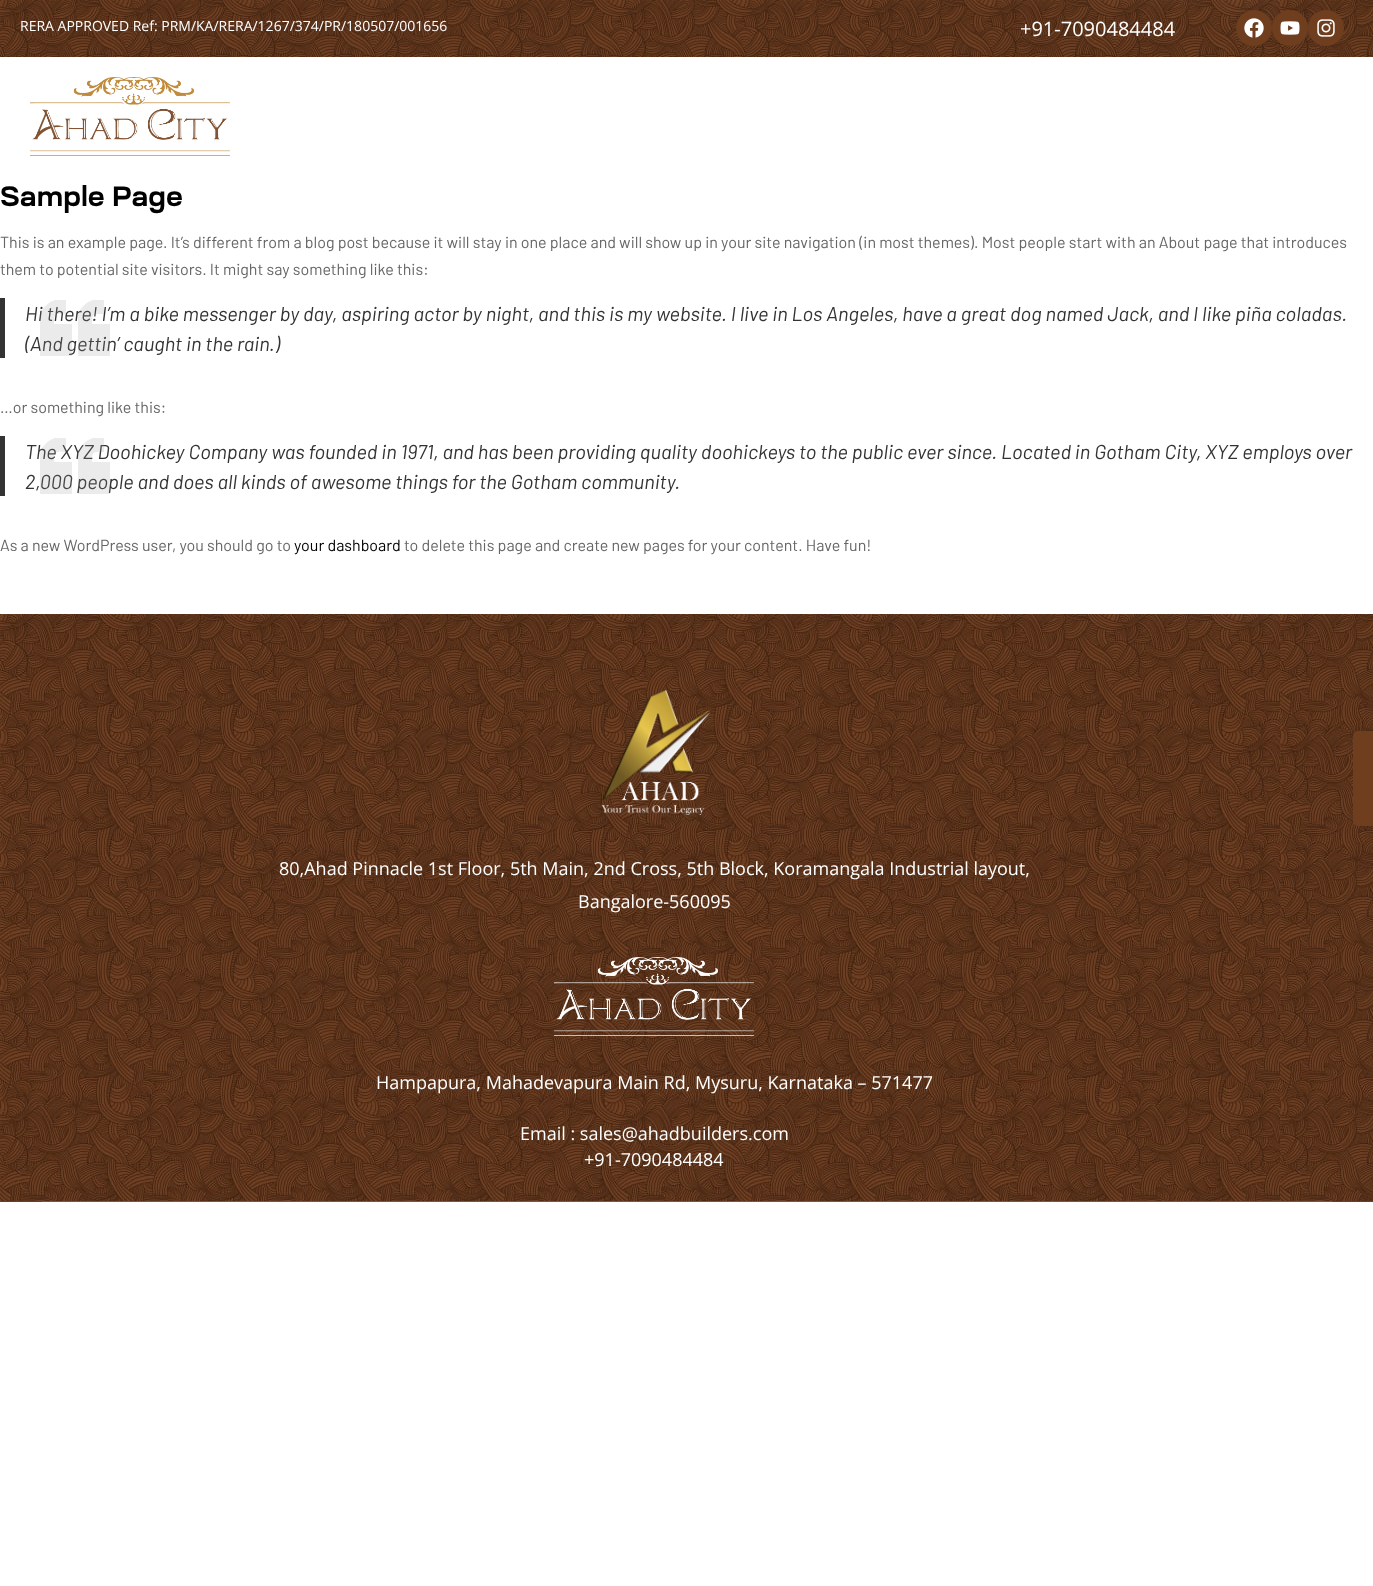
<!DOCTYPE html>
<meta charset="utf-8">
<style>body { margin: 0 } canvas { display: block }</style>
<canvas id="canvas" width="1373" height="1586"></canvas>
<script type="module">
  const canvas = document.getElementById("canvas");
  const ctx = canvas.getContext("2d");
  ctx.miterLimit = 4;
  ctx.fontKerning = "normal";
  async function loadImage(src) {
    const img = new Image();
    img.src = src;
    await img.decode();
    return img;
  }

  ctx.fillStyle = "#ffffff";
  ctx.fillRect(0, 0, 1373, 1586);
  ctx.drawImage(await loadImage("img1.png"), 0, 0, 1373, 57);
  ctx.font = "14px Open Sans";
  ctx.fillText("RERA APPROVED Ref: PRM/KA/RERA/1267/374/PR/180507/001656", 20, 31);
  ctx.font = "20px Open Sans";
  ctx.fillText("+91-7090484484", 1020, 36);
  ctx.fillStyle = "#6e3e1f";
  ctx.beginPath();
  ctx.arc(1254, 28, 18, 0, Math.PI * 2);
  ctx.fill();
  ctx.drawImage(await loadImage("img2.png"), 1244, 18, 20, 20);
  ctx.beginPath();
  ctx.arc(1290, 28, 18, 0, Math.PI * 2);
  ctx.fill();
  ctx.drawImage(await loadImage("img3.png"), 1280, 21, 20, 14);
  ctx.beginPath();
  ctx.arc(1326, 28, 18, 0, Math.PI * 2);
  ctx.fill();
  ctx.drawImage(await loadImage("img4.png"), 1317, 19, 18, 18);
  ctx.drawImage(await loadImage("img5.png"), 30, 77, 200, 79);
  ctx.font = "bold 28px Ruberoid";
  ctx.fillStyle = "#000000";
  ctx.fillText("Sample Page", 0, 206);
  ctx.font = "16px Barlow";
  ctx.fillStyle = "#666666";
  ctx.fillText("This is an example page. It’s different from a blog post because it will stay in one place and will show up in your site navigation (in most themes). Most people start with an About page that introduces", 0, 248);
  ctx.fillText("them to potential site visitors. It might say something like this:", 0, 275);
  ctx.fillStyle = "#333333";
  ctx.fillRect(0, 298, 5, 60);
  ctx.font = "italic 20px Barlow";
  ctx.fillText("Hi there! I’m a bike messenger by day, aspiring actor by night, and this is my website. I live in Los Angeles, have a great dog named Jack, and I like piña coladas.", 25, 321);
  ctx.fillText("(And gettin’ caught in the rain.)", 25, 351);
  ctx.fillStyle = "rgba(153, 153, 153, 0.2)";
  ctx.beginPath();
  ctx.moveTo(92, 324);
  ctx.bezierCurveTo(92, 313, 93, 314, 104, 314);
  ctx.lineTo(104, 300);
  ctx.lineTo(93, 300);
  ctx.bezierCurveTo(86, 302, 80, 308, 78, 315);
  ctx.lineTo(78, 356);
  ctx.lineTo(110, 356);
  ctx.lineTo(110, 324);
  ctx.closePath();
  ctx.moveTo(54, 319);
  ctx.bezierCurveTo(54, 312, 62, 314, 66, 314);
  ctx.lineTo(66, 300);
  ctx.lineTo(55, 300);
  ctx.bezierCurveTo(48, 302, 42, 308, 40, 315);
  ctx.lineTo(40, 356);
  ctx.lineTo(72, 356);
  ctx.lineTo(72, 324);
  ctx.lineTo(54, 324);
  ctx.closePath();
  ctx.fill();
  ctx.font = "16px Barlow";
  ctx.fillStyle = "#666666";
  ctx.fillText("…or something like this:", 0, 413);
  ctx.fillStyle = "#333333";
  ctx.fillRect(0, 436, 5, 60);
  ctx.font = "italic 20px Barlow";
  ctx.fillText("The XYZ Doohickey Company was founded in 1971, and has been providing quality doohickeys to the public ever since. Located in Gotham City, XYZ employs over", 25, 459);
  ctx.fillText("2,000 people and does all kinds of awesome things for the Gotham community.", 25, 489);
  ctx.fillStyle = "rgba(153, 153, 153, 0.2)";
  ctx.beginPath();
  ctx.moveTo(92, 462);
  ctx.bezierCurveTo(92, 451, 93, 452, 104, 452);
  ctx.lineTo(104, 438);
  ctx.lineTo(93, 438);
  ctx.bezierCurveTo(86, 440, 80, 446, 78, 453);
  ctx.lineTo(78, 494);
  ctx.lineTo(110, 494);
  ctx.lineTo(110, 462);
  ctx.closePath();
  ctx.moveTo(54, 457);
  ctx.bezierCurveTo(54, 450, 62, 452, 66, 452);
  ctx.lineTo(66, 438);
  ctx.lineTo(55, 438);
  ctx.bezierCurveTo(48, 440, 42, 446, 40, 453);
  ctx.lineTo(40, 494);
  ctx.lineTo(72, 494);
  ctx.lineTo(72, 462);
  ctx.lineTo(54, 462);
  ctx.closePath();
  ctx.fill();
  ctx.font = "16px Barlow";
  ctx.fillStyle = "#666666";
  ctx.fillText("As a new WordPress user, you should go to", 0, 551);
  ctx.fillStyle = "#000000";
  ctx.fillText("your dashboard", 294, 551);
  ctx.fillStyle = "#666666";
  ctx.fillText("to delete this page and create new pages for your content. Have fun!", 404, 551);
  ctx.drawImage(await loadImage("img6.png"), 0, 614, 1373, 587);
  ctx.fillStyle = "#6e3e1f";
  ctx.beginPath();
  ctx.moveTo(1353, 821);
  ctx.lineTo(1353, 736);
  ctx.bezierCurveTo(1353, 733, 1355, 731, 1358, 731);
  ctx.lineTo(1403, 731);
  ctx.lineTo(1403, 826);
  ctx.lineTo(1358, 826);
  ctx.bezierCurveTo(1355, 826, 1353, 823, 1353, 821);
  ctx.closePath();
  ctx.fill();
  ctx.drawImage(await loadImage("img7.png"), 601, 689, 110, 126);
  ctx.font = "18px Open Sans";
  ctx.fillStyle = "#ffffff";
  ctx.fillText("80,Ahad Pinnacle 1st Floor, 5th Main, 2nd Cross, 5th Block, Koramangala Industrial layout,", 279, 875);
  ctx.fillText("Bangalore-560095", 578, 908);
  ctx.drawImage(await loadImage("img8.png"), 554, 957, 200, 79);
  ctx.fillText("Hampapura, Mahadevapura Main Rd, Mysuru, Karnataka – 571477", 376, 1089);
  ctx.fillText("Email : sales@ahadbuilders.com", 520, 1140);
  ctx.fillText("+91-7090484484", 584, 1166);
  ctx.fillStyle = "#6e3e1f";
  ctx.fillRect(0, 1201, 1373, 1);
  ctx.fillStyle = "#307376";
  ctx.fillRect(42, 1201, 1290, 1);
</script>
